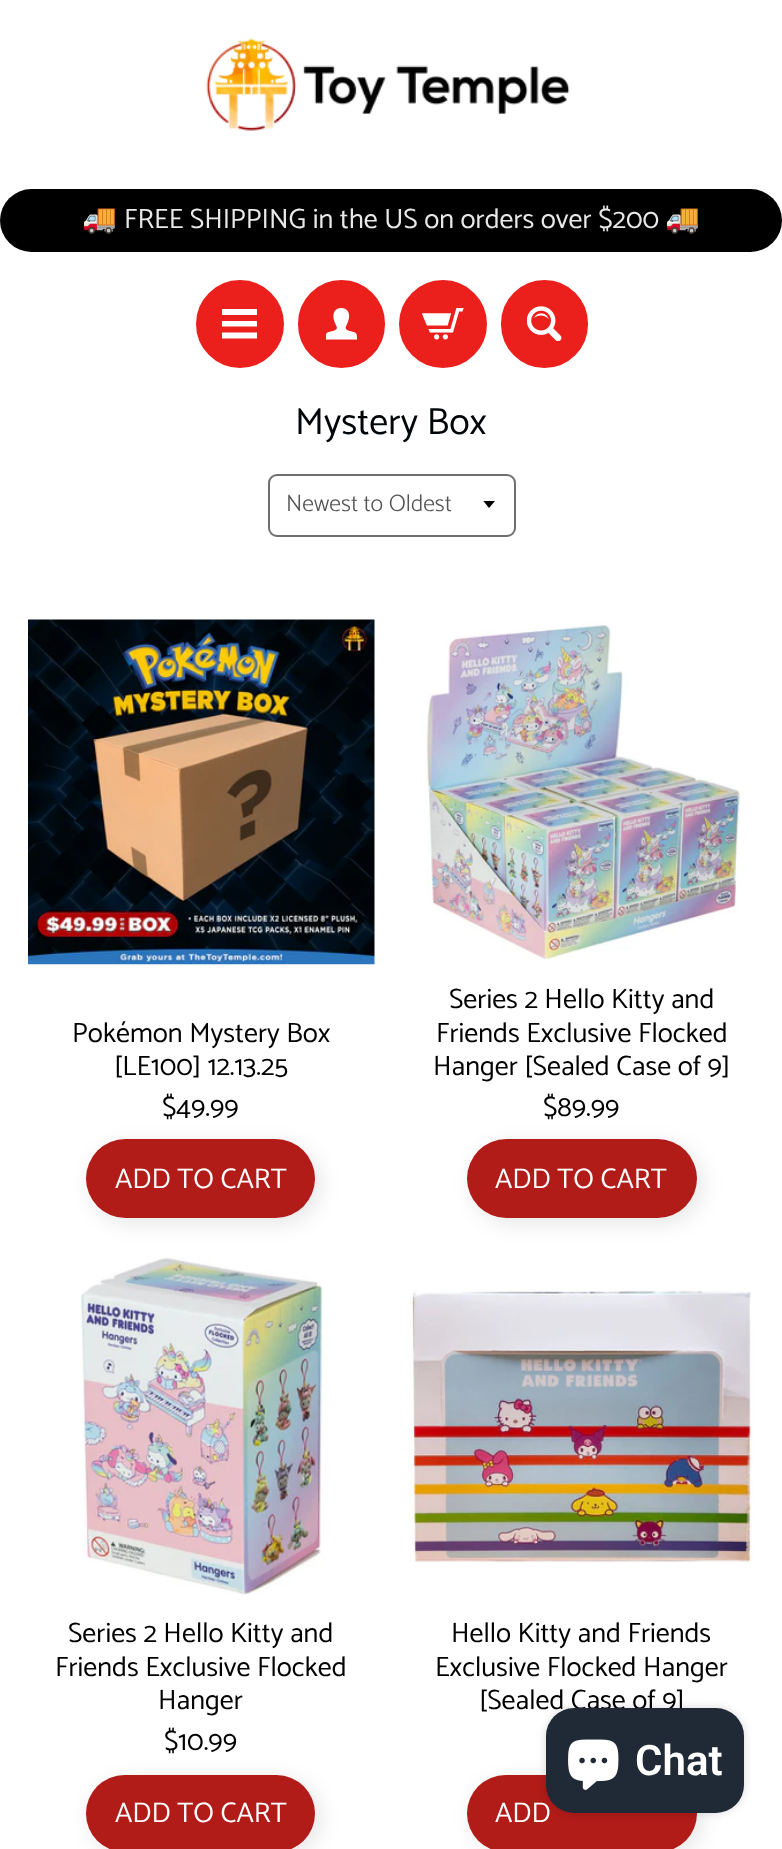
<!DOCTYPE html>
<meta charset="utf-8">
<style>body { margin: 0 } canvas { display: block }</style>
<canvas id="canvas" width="782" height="1849"></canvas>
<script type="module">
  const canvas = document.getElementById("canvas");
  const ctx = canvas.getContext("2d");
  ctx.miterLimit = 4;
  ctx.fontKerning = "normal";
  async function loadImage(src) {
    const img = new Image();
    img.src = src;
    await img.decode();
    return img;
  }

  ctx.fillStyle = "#ffffff";
  ctx.fillRect(0, 0, 782, 1849);
  ctx.drawImage(await loadImage("img1.png"), 206, 38, 364, 93);
  ctx.fillStyle = "#000000";
  ctx.beginPath();
  ctx.roundRect(0, 189, 782, 63, 31.5);
  ctx.fill();
  ctx.font = "28px Noto Color Emoji";
  ctx.fillStyle = "#e8e8e8";
  ctx.fillText("🚚", 82, 228);
  ctx.font = "28px Catamaran";
  ctx.fillText("FREE SHIPPING in the US on orders over $200", 124, 228);
  ctx.font = "28px Noto Color Emoji";
  ctx.fillText("🚚", 665, 228);
  ctx.fillStyle = "#eb201c";
  ctx.beginPath();
  ctx.arc(240, 324, 41.5, 0, Math.PI * 2);
  ctx.fill();
  ctx.strokeStyle = "#eb201c";
  ctx.lineWidth = 5;
  ctx.stroke();
  ctx.fillStyle = "#ffffff";
  ctx.beginPath();
  ctx.moveTo(257, 315);
  ctx.lineTo(222, 315);
  ctx.lineTo(222, 309);
  ctx.lineTo(257, 309);
  ctx.closePath();
  ctx.moveTo(257, 321);
  ctx.lineTo(222, 321);
  ctx.lineTo(222, 326.5);
  ctx.lineTo(257, 326.5);
  ctx.closePath();
  ctx.moveTo(257, 332.5);
  ctx.lineTo(222, 332.5);
  ctx.lineTo(222, 338.5);
  ctx.lineTo(257, 338.5);
  ctx.closePath();
  ctx.fill();
  ctx.fillStyle = "#eb201c";
  ctx.beginPath();
  ctx.roundRect(300.5, 282.5, 82, 83, 41);
  ctx.fill();
  ctx.stroke();
  ctx.drawImage(await loadImage("img2.png"), 326, 308, 31, 32);
  ctx.beginPath();
  ctx.arc(443, 324, 41.5, 0, Math.PI * 2);
  ctx.fill();
  ctx.stroke();
  ctx.drawImage(await loadImage("img3.png"), 422, 308, 42, 32);
  ctx.beginPath();
  ctx.roundRect(503.5, 282.5, 82, 83, 41);
  ctx.fill();
  ctx.stroke();
  ctx.drawImage(await loadImage("img4.png"), 527, 306, 35, 35);
  ctx.font = "38px Catamaran";
  ctx.fillStyle = "#000507";
  ctx.fillText("Mystery Box", 295, 434);
  ctx.save();
  ctx.beginPath();
  ctx.rect(483, 501, 14, 8);
  ctx.clip();
  ctx.fillStyle = "#000000";
  ctx.beginPath();
  ctx.moveTo(483, 500.5);
  ctx.lineTo(489, 508);
  ctx.lineTo(495.5, 500.5);
  ctx.closePath();
  ctx.fill();
  ctx.restore();
  ctx.beginPath();
  ctx.roundRect(269, 475, 246, 61, 8);
  ctx.strokeStyle = "#6f6f6f";
  ctx.lineWidth = 2;
  ctx.stroke();
  ctx.font = "300 23.75px Catamaran";
  ctx.fillStyle = "#555555";
  ctx.fillText("Newest to Oldest", 286, 511);
  ctx.drawImage(await loadImage("img5.png"), 28, 619, 347, 346);
  ctx.font = "28px Catamaran";
  ctx.fillStyle = "#000000";
  ctx.fillText("Pokémon Mystery Box", 72, 1042);
  ctx.fillText("[LE100] 12.13.25", 114, 1075);
  ctx.fillText("$49.99", 162, 1116);
  ctx.fillStyle = "rgba(0, 0, 0, 0.1)";
  ctx.filter = "blur(10.5px)";
  ctx.beginPath();
  ctx.roundRect(91, 1145, 229, 78, 39);
  ctx.fill();
  ctx.filter = "none";
  ctx.fillStyle = "#b11b18";
  ctx.beginPath();
  ctx.roundRect(86, 1139, 229, 79, 39.5);
  ctx.fill();
  ctx.font = "28.5px Catamaran";
  ctx.fillStyle = "#ffffff";
  ctx.fillText("ADD TO CART", 115, 1188);
  ctx.drawImage(await loadImage("img6.png"), 426, 620, 315, 340);
  ctx.font = "28px Catamaran";
  ctx.fillStyle = "#000000";
  ctx.fillText("Series 2 Hello Kitty and", 449, 1008);
  ctx.fillText("Friends Exclusive Flocked", 436, 1042);
  ctx.fillText("Hanger [Sealed Case of 9]", 433, 1075);
  ctx.fillText("$89.99", 543, 1116);
  ctx.fillStyle = "rgba(0, 0, 0, 0.1)";
  ctx.filter = "blur(10.5px)";
  ctx.beginPath();
  ctx.roundRect(473, 1145, 229, 78, 39);
  ctx.fill();
  ctx.filter = "none";
  ctx.fillStyle = "#b11b18";
  ctx.beginPath();
  ctx.roundRect(467, 1139, 230, 79, 39.5);
  ctx.fill();
  ctx.font = "28.5px Catamaran";
  ctx.fillStyle = "#ffffff";
  ctx.fillText("ADD TO CART", 495, 1188);
  ctx.drawImage(await loadImage("img7.png"), 81, 1257, 243, 338);
  ctx.font = "28px Catamaran";
  ctx.fillStyle = "#000000";
  ctx.fillText("Series 2 Hello Kitty and", 68, 1642);
  ctx.fillText("Friends Exclusive Flocked", 55, 1676);
  ctx.fillText("Hanger", 158, 1709);
  ctx.fillText("$10.99", 164, 1750);
  ctx.fillStyle = "rgba(0, 0, 0, 0.1)";
  ctx.filter = "blur(10.5px)";
  ctx.beginPath();
  ctx.roundRect(91, 1780, 229, 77, 38.5);
  ctx.fill();
  ctx.filter = "none";
  ctx.fillStyle = "#b11b18";
  ctx.beginPath();
  ctx.roundRect(86, 1775, 229, 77, 38.5);
  ctx.fill();
  ctx.font = "28.5px Catamaran";
  ctx.fillStyle = "#ffffff";
  ctx.fillText("ADD TO CART", 115, 1822);
  ctx.drawImage(await loadImage("img8.png"), 409, 1290, 345, 273);
  ctx.font = "28px Catamaran";
  ctx.fillStyle = "#000000";
  ctx.fillText("Hello Kitty and Friends", 451, 1642);
  ctx.fillText("Exclusive Flocked Hanger", 435, 1676);
  ctx.fillText("[Sealed Case of 9]", 479, 1709);
  ctx.fillStyle = "rgba(0, 0, 0, 0.1)";
  ctx.filter = "blur(10.5px)";
  ctx.beginPath();
  ctx.roundRect(473, 1780, 229, 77, 38.5);
  ctx.fill();
  ctx.filter = "none";
  ctx.fillStyle = "#b11b18";
  ctx.beginPath();
  ctx.roundRect(467, 1775, 230, 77, 38.5);
  ctx.fill();
  ctx.font = "28.5px Catamaran";
  ctx.fillStyle = "#ffffff";
  ctx.fillText("ADD", 495, 1822);
  ctx.fillStyle = "rgba(0, 0, 0, 0.15)";
  ctx.filter = "blur(4.5px)";
  ctx.beginPath();
  ctx.roundRect(546, 1708, 198, 105, 28);
  ctx.fill();
  ctx.filter = "none";
  ctx.fillStyle = "#202a36";
  ctx.beginPath();
  ctx.roundRect(546, 1708, 198, 105, 28);
  ctx.fill();
  ctx.drawImage(await loadImage("img9.png"), 568, 1739, 51, 51);
  ctx.font = "600 42px Roboto";
  ctx.fillStyle = "#ffffff";
  ctx.fillText("Chat", 635, 1775);
</script>
